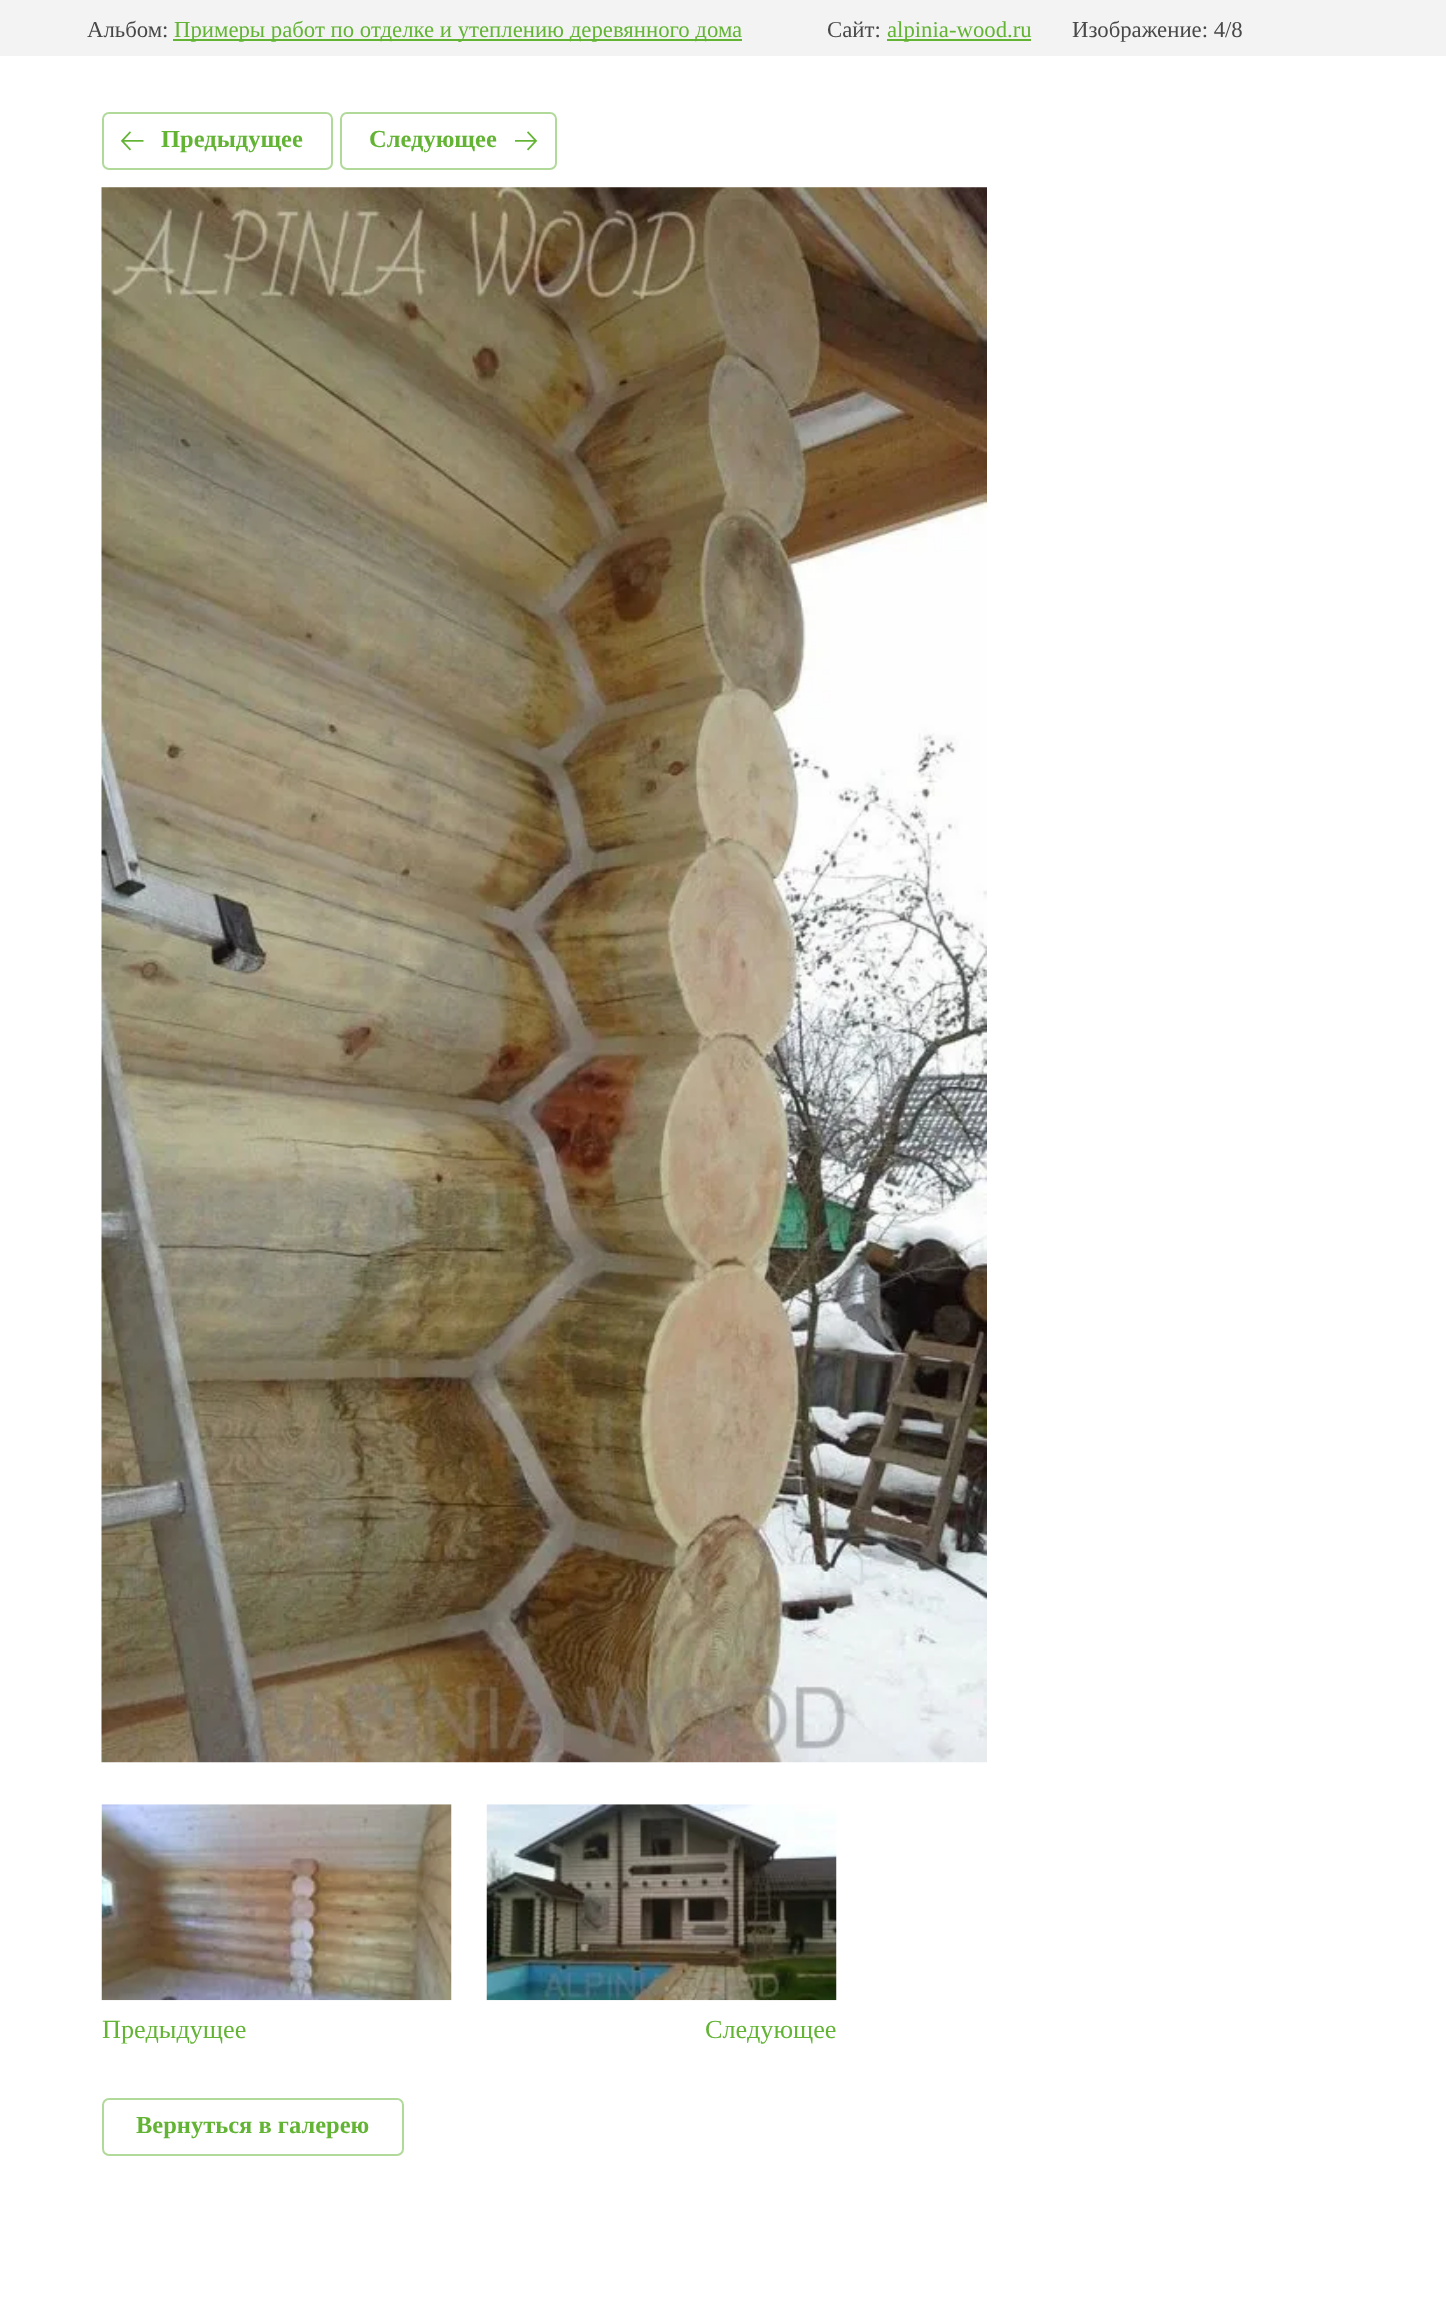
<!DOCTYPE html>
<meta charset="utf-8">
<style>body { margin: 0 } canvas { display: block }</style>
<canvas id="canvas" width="1446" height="2318"></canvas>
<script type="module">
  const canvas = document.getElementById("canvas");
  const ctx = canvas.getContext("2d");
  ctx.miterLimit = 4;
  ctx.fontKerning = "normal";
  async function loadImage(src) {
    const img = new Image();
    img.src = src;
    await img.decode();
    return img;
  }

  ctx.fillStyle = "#ffffff";
  ctx.fillRect(0, 0, 1446, 2318);
  ctx.fillStyle = "#f3f3f3";
  ctx.fillRect(0, 0, 1446, 56);
  ctx.font = "22.75px Liberation Serif";
  ctx.fillStyle = "#484848";
  ctx.fillText("Альбом:", 87, 37);
  ctx.fillStyle = "#63b435";
  ctx.fillRect(173, 39, 569, 2);
  ctx.fillText("Примеры работ по отделке и утеплению деревянного дома", 174, 37);
  ctx.fillStyle = "#484848";
  ctx.fillText("Сайт:", 827, 37);
  ctx.fillStyle = "#63b435";
  ctx.fillRect(887, 39, 144, 2);
  ctx.fillText("alpinia-wood.ru", 887, 37);
  ctx.fillStyle = "#484848";
  ctx.fillText("Изображение: 4/8", 1072, 37);
  ctx.beginPath();
  ctx.roundRect(103, 113, 229, 56, 6);
  ctx.strokeStyle = "#b1da9a";
  ctx.lineWidth = 2;
  ctx.stroke();
  ctx.drawImage(await loadImage("img1.png"), 121, 131, 23, 20);
  ctx.font = "bold 24.5px Liberation Serif";
  ctx.fillStyle = "#63b435";
  ctx.fillText("Предыдущее", 161, 147);
  ctx.beginPath();
  ctx.roundRect(341, 113, 215, 56, 6);
  ctx.stroke();
  ctx.fillText("Следующее", 369, 147);
  ctx.drawImage(await loadImage("img2.png"), 515, 131, 22, 20);
  ctx.drawImage(await loadImage("img3.png"), 101, 187, 886, 1576);
  ctx.drawImage(await loadImage("img4.png"), 101, 1804, 351, 197);
  ctx.font = "26.25px Liberation Serif";
  ctx.fillText("Предыдущее", 102, 2038);
  ctx.drawImage(await loadImage("img5.png"), 486, 1804, 351, 197);
  ctx.fillText("Следующее", 705, 2038);
  ctx.beginPath();
  ctx.roundRect(103, 2099, 300, 56, 6);
  ctx.stroke();
  ctx.font = "bold 24.5px Liberation Serif";
  ctx.fillText("Вернуться в галерею", 136, 2133);
</script>
